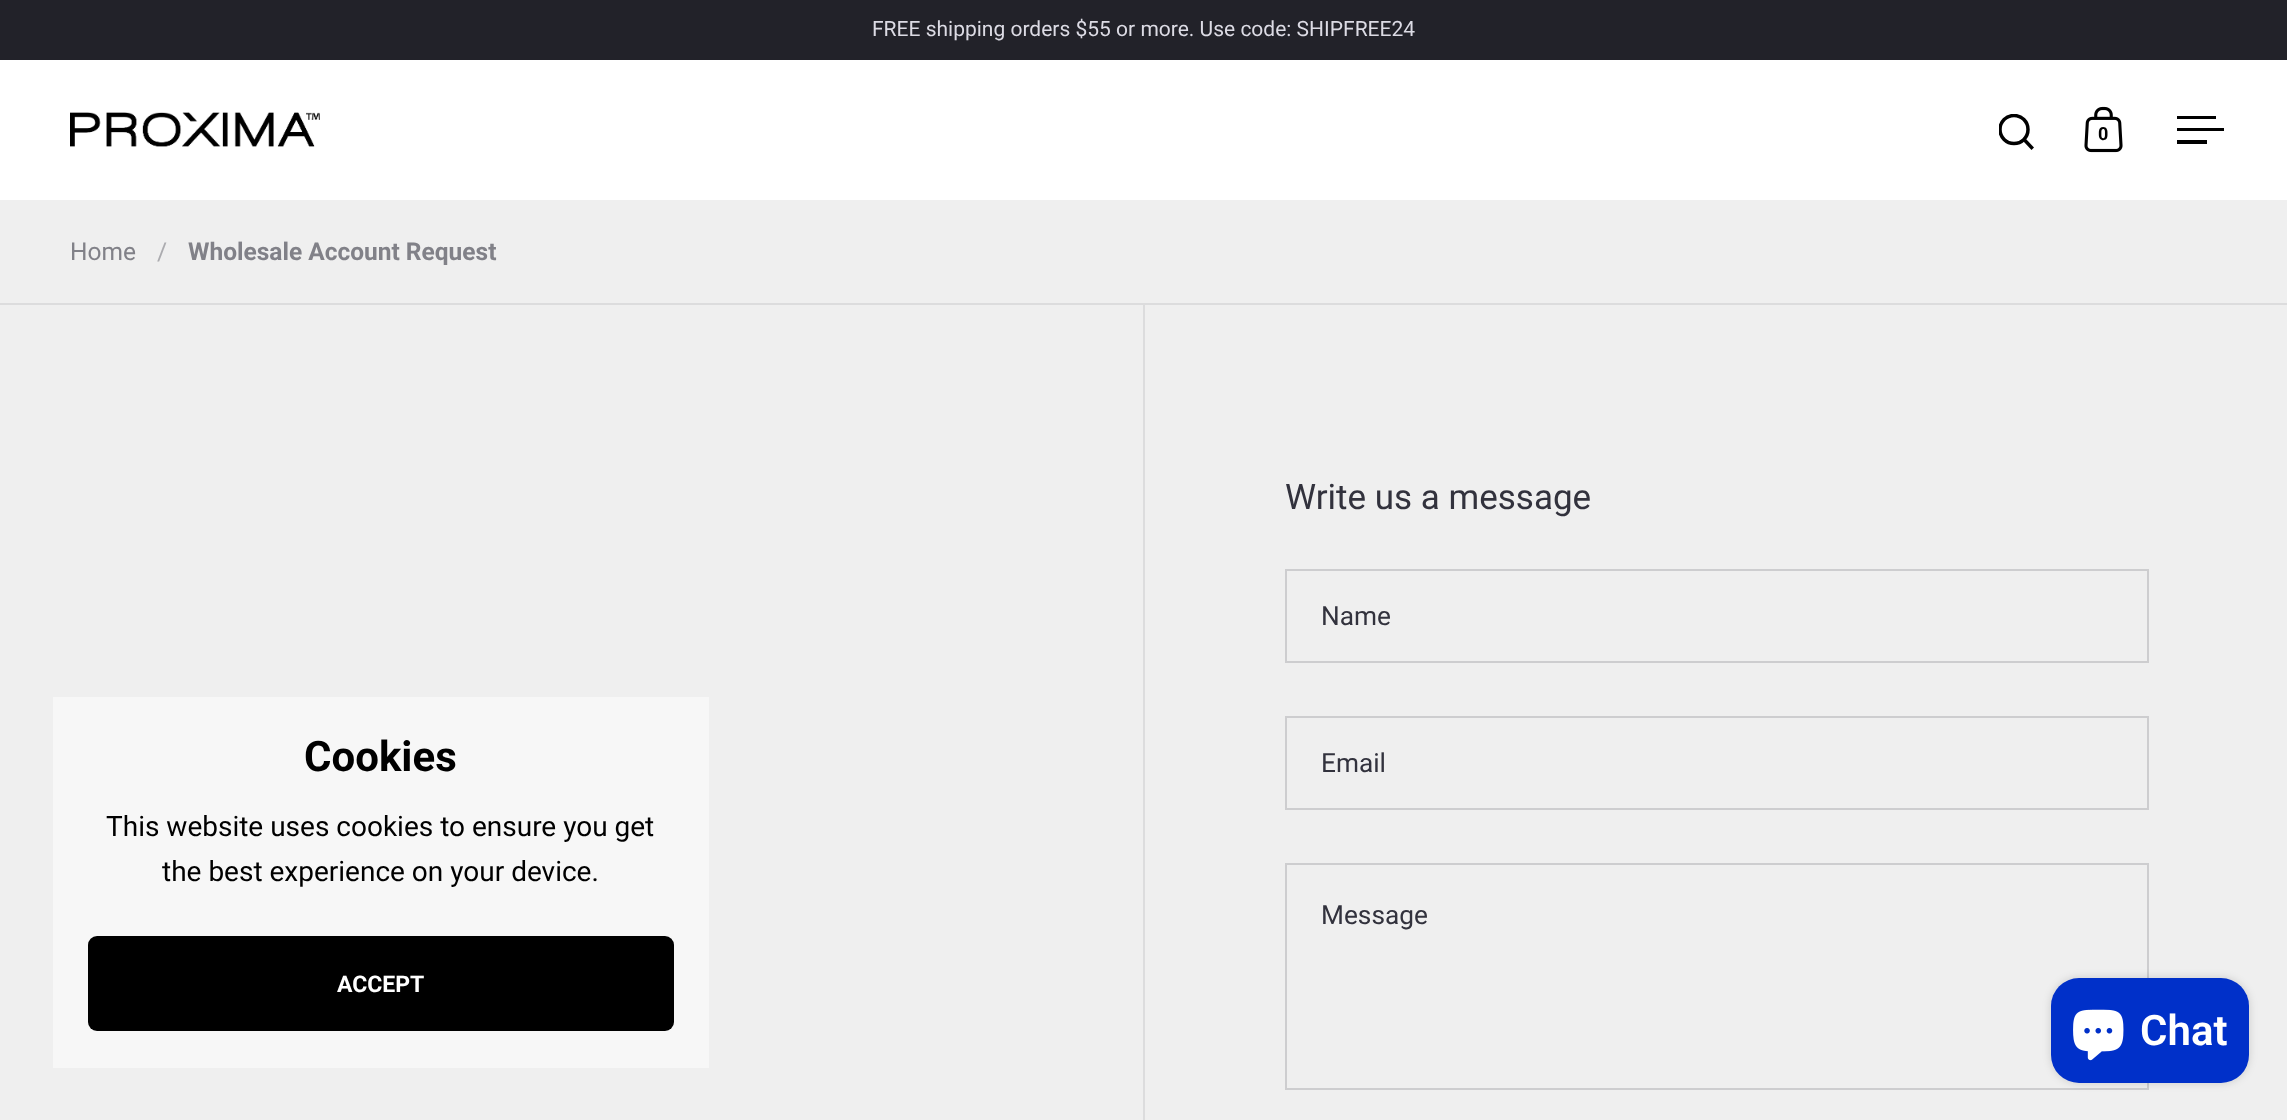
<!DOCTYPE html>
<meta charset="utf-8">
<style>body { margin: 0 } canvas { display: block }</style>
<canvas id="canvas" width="2287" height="1120"></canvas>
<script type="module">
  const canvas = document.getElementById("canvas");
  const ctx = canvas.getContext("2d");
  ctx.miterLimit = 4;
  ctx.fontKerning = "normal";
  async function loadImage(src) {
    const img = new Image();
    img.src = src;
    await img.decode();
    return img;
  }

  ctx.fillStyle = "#efefef";
  ctx.fillRect(0, 0, 2287, 1120);
  ctx.fillStyle = "#222229";
  ctx.fillRect(0, 0, 2287, 60);
  ctx.font = "21px Roboto";
  ctx.fillStyle = "#dcdbe4";
  ctx.fillText("FREE shipping orders $55 or more. Use code: SHIPFREE24", 872, 36);
  ctx.fillStyle = "#ffffff";
  ctx.fillRect(0, 60, 2287, 140);
  ctx.drawImage(await loadImage("img1.png"), 70, 112, 250, 35);
  ctx.save();
  ctx.beginPath();
  ctx.rect(1999, 114, 36, 37);
  ctx.clip();
  ctx.beginPath();
  ctx.arc(2014, 129.5, 14, 0, Math.PI * 2);
  ctx.strokeStyle = "#000000";
  ctx.lineWidth = 3.5;
  ctx.stroke();
  ctx.restore();
  ctx.fillStyle = "#000000";
  ctx.beginPath();
  ctx.moveTo(2023.5, 141.5);
  ctx.lineTo(2026, 139);
  ctx.lineTo(2034, 147.5);
  ctx.lineTo(2031.5, 150);
  ctx.closePath();
  ctx.fill();
  ctx.drawImage(await loadImage("img2.png"), 2084, 106, 39, 47);
  ctx.font = "bold 18px Roboto";
  ctx.fillText("0", 2098, 140);
  ctx.fillRect(2177, 116, 39, 3);
  ctx.fillRect(2177, 128, 47, 3);
  ctx.fillRect(2177, 140, 30, 4);
  ctx.fillStyle = "#dcdcdd";
  ctx.fillRect(0, 303, 2287, 2);
  ctx.font = "24.5px Roboto";
  ctx.fillStyle = "#818188";
  ctx.fillText("Home", 70, 260);
  ctx.fillStyle = "#ababaf";
  ctx.fillText("/", 157, 260);
  ctx.font = "bold 24.5px Roboto";
  ctx.fillStyle = "#818188";
  ctx.fillText("Wholesale Account Request", 188, 260);
  ctx.fillStyle = "#f7f7f7";
  ctx.fillRect(53, 697, 656, 371);
  ctx.font = "bold 42px Roboto";
  ctx.fillStyle = "#000000";
  ctx.fillText("Cookies", 304, 771);
  ctx.font = "28px Roboto";
  ctx.fillText("This website uses cookies to ensure you get", 106, 836);
  ctx.fillText("the best experience on your device.", 162, 881);
  ctx.beginPath();
  ctx.roundRect(88, 936, 586, 95, 9);
  ctx.fill();
  ctx.font = "bold 23px Roboto";
  ctx.fillStyle = "#ffffff";
  ctx.fillText("ACCEPT", 337, 992);
  ctx.fillStyle = "#dcdcdd";
  ctx.fillRect(1143, 305, 2, 815);
  ctx.font = "35px Roboto";
  ctx.fillStyle = "#32323d";
  ctx.fillText("Write us a message", 1285, 509);
  ctx.strokeStyle = "#cdcdcf";
  ctx.lineWidth = 2;
  ctx.strokeRect(1286, 570, 862, 92);
  ctx.font = "26.25px Roboto";
  ctx.fillText("Name", 1321, 625);
  ctx.strokeRect(1286, 717, 862, 92);
  ctx.fillText("Email", 1321, 772);
  ctx.strokeRect(1286, 864, 862, 225);
  ctx.fillText("Message", 1321, 924);
  ctx.fillStyle = "rgba(0, 0, 0, 0.15)";
  ctx.filter = "blur(4.5px)";
  ctx.beginPath();
  ctx.roundRect(2051, 978, 198, 105, 28);
  ctx.fill();
  ctx.filter = "none";
  ctx.fillStyle = "#0030c9";
  ctx.beginPath();
  ctx.roundRect(2051, 978, 198, 105, 28);
  ctx.fill();
  ctx.drawImage(await loadImage("img3.png"), 2073, 1009, 51, 52);
  ctx.font = "600 42px Roboto";
  ctx.fillStyle = "#ffffff";
  ctx.fillText("Chat", 2140, 1045);
</script>
